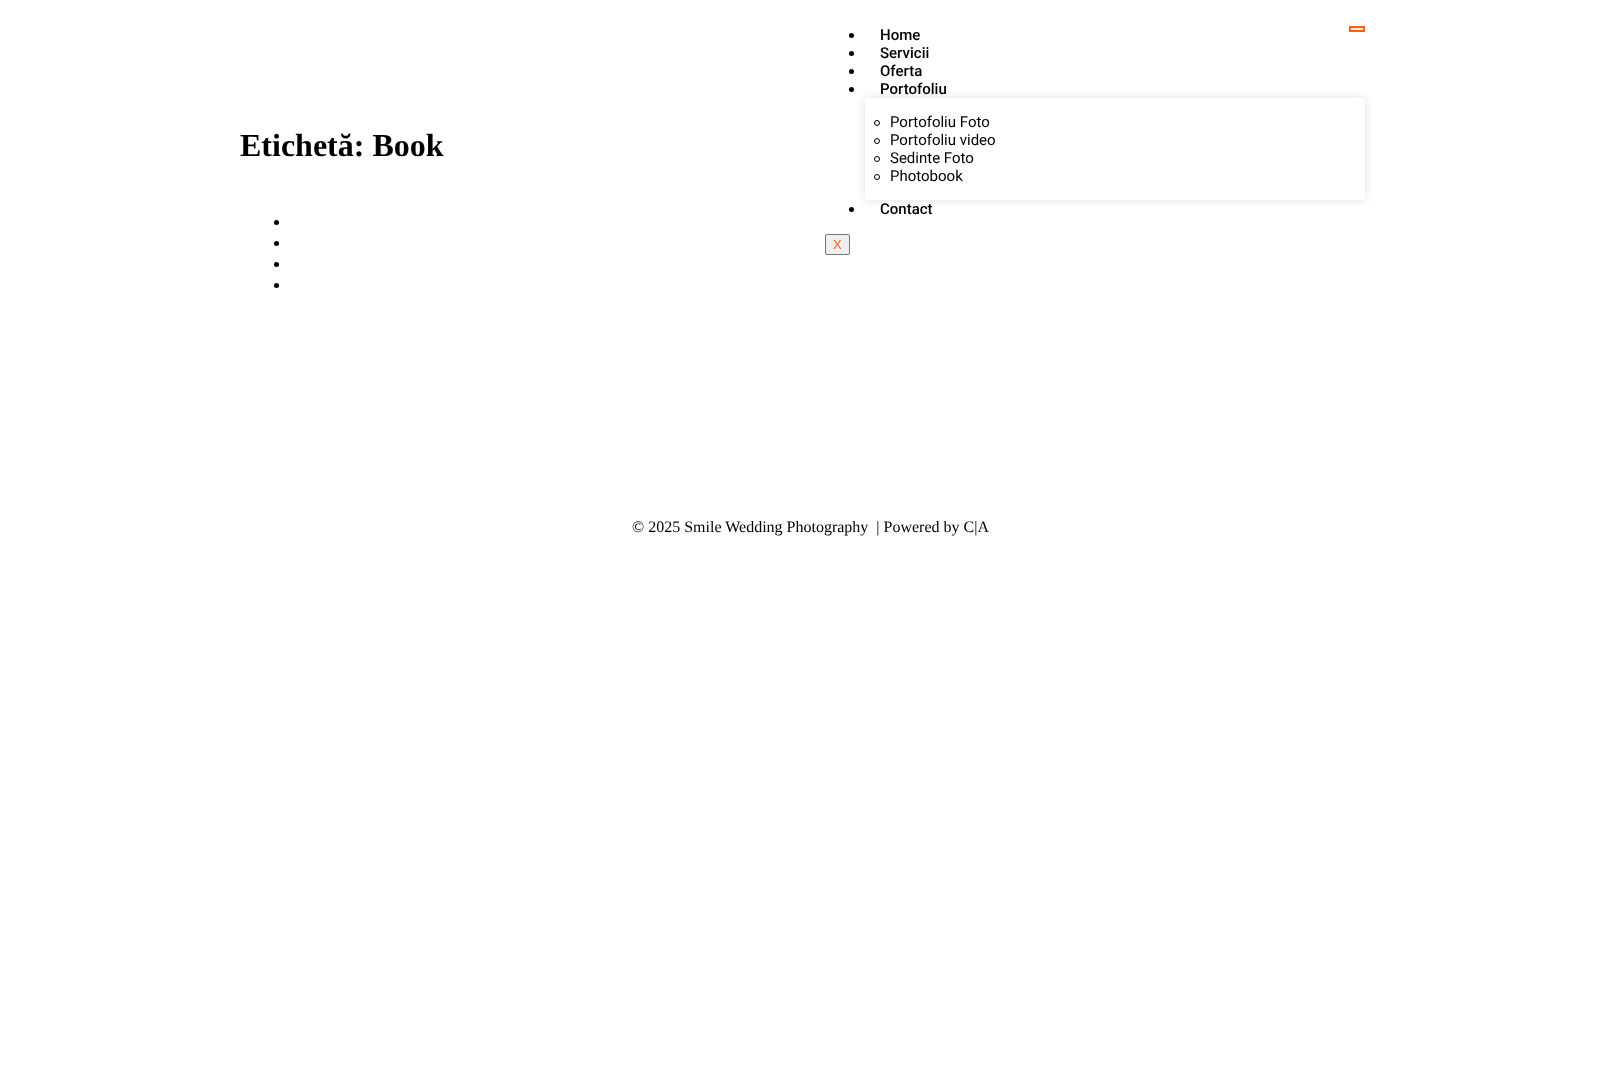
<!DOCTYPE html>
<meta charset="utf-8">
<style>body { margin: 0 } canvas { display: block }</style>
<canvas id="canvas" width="1620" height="1090"></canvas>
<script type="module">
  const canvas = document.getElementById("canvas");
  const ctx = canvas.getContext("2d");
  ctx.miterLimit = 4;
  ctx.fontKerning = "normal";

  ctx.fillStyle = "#ffffff";
  ctx.fillRect(0, 0, 1620, 1090);
  ctx.font = "bold 32px Liberation Serif";
  ctx.fillStyle = "#000000";
  ctx.fillText("Etichetă: Book", 240, 156);
  ctx.beginPath();
  ctx.arc(851.5, 35.5, 2.5, 0, Math.PI * 2);
  ctx.fill();
  ctx.font = "500 15px Roboto";
  ctx.fillText("Home", 880, 40);
  ctx.beginPath();
  ctx.arc(851.5, 53.5, 2.5, 0, Math.PI * 2);
  ctx.fill();
  ctx.fillText("Servicii", 880, 58);
  ctx.beginPath();
  ctx.arc(851.5, 71.5, 2.5, 0, Math.PI * 2);
  ctx.fill();
  ctx.fillText("Oferta", 880, 76);
  ctx.save();
  ctx.beginPath();
  ctx.moveTo(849, 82);
  ctx.lineTo(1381, 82);
  ctx.lineTo(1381, 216);
  ctx.lineTo(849, 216);
  ctx.closePath();
  ctx.moveTo(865, 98);
  ctx.lineTo(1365, 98);
  ctx.lineTo(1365, 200);
  ctx.lineTo(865, 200);
  ctx.closePath();
  ctx.clip("evenodd");
  ctx.fillStyle = "rgba(0, 0, 0, 0.12)";
  ctx.filter = "blur(5px)";
  ctx.beginPath();
  ctx.rect(865, 98, 500, 102);
  ctx.fill();
  ctx.filter = "none";
  ctx.restore();
  ctx.beginPath();
  ctx.arc(851.5, 89.5, 2.5, 0, Math.PI * 2);
  ctx.fill();
  ctx.fillText("Portofoliu", 880, 94);
  ctx.beginPath();
  ctx.arc(877, 123, 2.5, 0, Math.PI * 2);
  ctx.strokeStyle = "#000000";
  ctx.stroke();
  ctx.font = "15px Roboto";
  ctx.fillText("Portofoliu Foto", 890, 127);
  ctx.beginPath();
  ctx.arc(877, 141, 2.5, 0, Math.PI * 2);
  ctx.stroke();
  ctx.fillText("Portofoliu video", 890, 145);
  ctx.beginPath();
  ctx.arc(877, 159, 2.5, 0, Math.PI * 2);
  ctx.stroke();
  ctx.fillText("Sedinte Foto", 890, 163);
  ctx.beginPath();
  ctx.arc(877, 177, 2.5, 0, Math.PI * 2);
  ctx.stroke();
  ctx.fillText("Photobook", 890, 181);
  ctx.beginPath();
  ctx.arc(851.5, 209.5, 2.5, 0, Math.PI * 2);
  ctx.fill();
  ctx.font = "500 15px Roboto";
  ctx.fillText("Contact", 880, 214);
  ctx.fillStyle = "#efefef";
  ctx.beginPath();
  ctx.roundRect(825.5, 234.5, 24, 20, 1.5);
  ctx.fill();
  ctx.strokeStyle = "#767676";
  ctx.stroke();
  ctx.font = "13px Liberation Sans";
  ctx.fillStyle = "#ff5e13";
  ctx.fillText("X", 833, 249);
  ctx.fillStyle = "#efefef";
  ctx.beginPath();
  ctx.rect(1350, 27, 14, 4);
  ctx.fill();
  ctx.strokeStyle = "#ff5e13";
  ctx.lineWidth = 2;
  ctx.stroke();
  ctx.fillStyle = "#000000";
  ctx.beginPath();
  ctx.arc(276.5, 222.5, 2.5, 0, Math.PI * 2);
  ctx.fill();
  ctx.beginPath();
  ctx.arc(276.5, 243.5, 2.5, 0, Math.PI * 2);
  ctx.fill();
  ctx.beginPath();
  ctx.arc(276.5, 264.5, 2.5, 0, Math.PI * 2);
  ctx.fill();
  ctx.beginPath();
  ctx.arc(276.5, 285.5, 2.5, 0, Math.PI * 2);
  ctx.fill();
  ctx.font = "16px Liberation Serif";
  ctx.fillText("© 2025 Smile Wedding Photography  | Powered by C|A", 632, 532);
</script>
